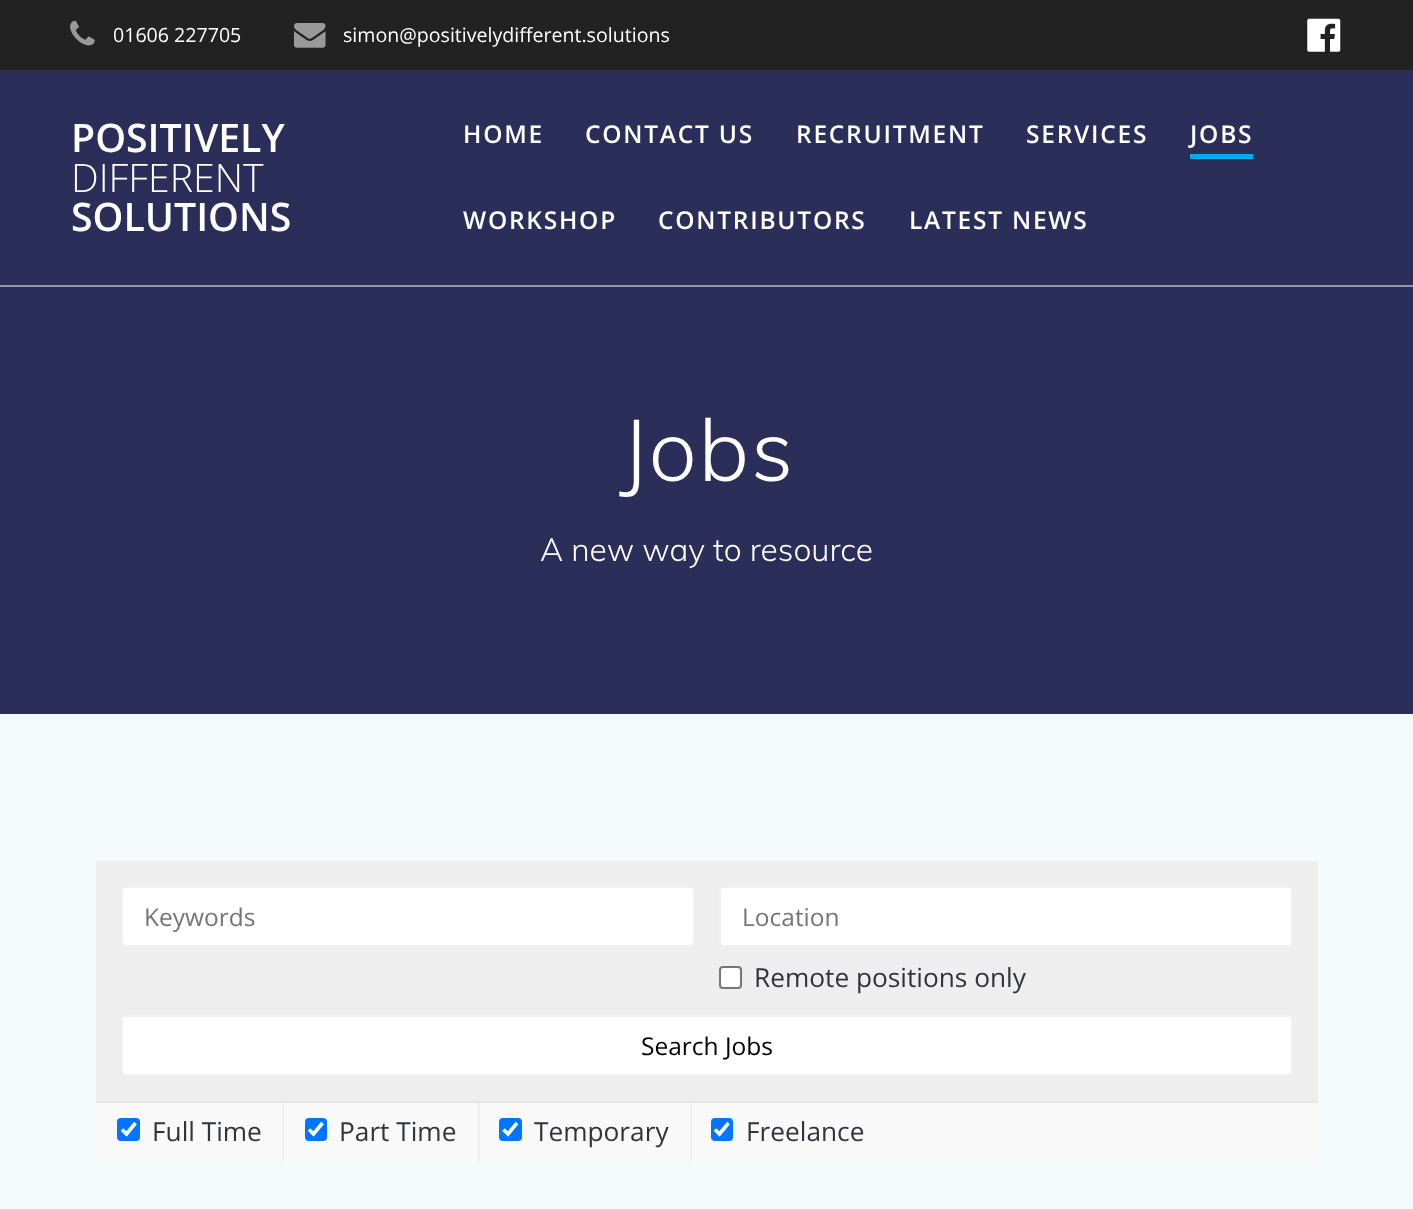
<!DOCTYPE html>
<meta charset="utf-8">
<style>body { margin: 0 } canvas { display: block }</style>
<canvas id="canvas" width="1413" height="1209"></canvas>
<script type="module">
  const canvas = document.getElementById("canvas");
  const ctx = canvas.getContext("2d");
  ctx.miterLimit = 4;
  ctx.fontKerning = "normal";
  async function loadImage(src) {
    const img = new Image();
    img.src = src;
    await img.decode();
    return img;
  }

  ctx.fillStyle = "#2a2e58";
  ctx.fillRect(0, 0, 1413, 1209);
  ctx.fillStyle = "#222222";
  ctx.fillRect(0, 0, 1413, 70);
  ctx.drawImage(await loadImage("img1.png"), 70, 20, 25, 26);
  ctx.font = "19.6px Open Sans";
  ctx.fillStyle = "#ffffff";
  ctx.fillText("01606 227705", 113, 42);
  ctx.drawImage(await loadImage("img2.png"), 294, 23, 32, 25);
  ctx.fillText("simon@positivelydifferent.solutions", 343, 42);
  ctx.drawImage(await loadImage("img3.png"), 1307, 18, 34, 34);
  ctx.fillStyle = "#9597ac";
  ctx.fillRect(0, 285, 1413, 2);
  ctx.font = "600 39.25px Open Sans";
  ctx.fillStyle = "#ffffff";
  ctx.fillText("POSITIVELY", 71, 152);
  ctx.font = "300 39.25px Open Sans";
  ctx.fillText("DIFFERENT", 71, 192);
  ctx.font = "600 39.25px Open Sans";
  ctx.fillText("SOLUTIONS", 71, 231);
  ctx.letterSpacing = "1.75px";
  ctx.font = "600 24.5px Open Sans";
  ctx.fillText("HOME", 463, 143);
  ctx.fillText("CONTACT US", 585, 143);
  ctx.fillText("RECRUITMENT", 796, 143);
  ctx.fillText("SERVICES", 1026, 143);
  ctx.fillStyle = "#03a9f4";
  ctx.fillRect(1190, 154, 63, 5);
  ctx.fillStyle = "#ffffff";
  ctx.fillText("JOBS", 1190, 143);
  ctx.fillText("WORKSHOP", 463, 229);
  ctx.fillText("CONTRIBUTORS", 658, 229);
  ctx.fillText("LATEST NEWS", 909, 229);
  ctx.letterSpacing = "1.5px";
  ctx.font = "300 86px Muli";
  ctx.fillText("Jobs", 620, 481);
  ctx.letterSpacing = "0px";
  ctx.font = "300 31.8px Muli";
  ctx.fillText("A new way to resource", 540, 561);
  ctx.fillStyle = "#f5fafd";
  ctx.fillRect(0, 714, 1413, 495);
  ctx.fillStyle = "#eeeeee";
  ctx.fillRect(96, 861, 1222, 240);
  ctx.fillStyle = "#ffffff";
  ctx.beginPath();
  ctx.roundRect(122, 887, 572, 59, 4);
  ctx.fill();
  ctx.strokeStyle = "#f1f1f1";
  ctx.lineWidth = 2;
  ctx.stroke();
  ctx.font = "24.5px Open Sans";
  ctx.fillStyle = "#757575";
  ctx.fillText("Keywords", 144, 926);
  ctx.fillStyle = "#ffffff";
  ctx.beginPath();
  ctx.roundRect(720, 887, 572, 59, 4);
  ctx.fill();
  ctx.stroke();
  ctx.fillStyle = "#757575";
  ctx.fillText("Location", 742, 926);
  ctx.fillStyle = "#ffffff";
  ctx.beginPath();
  ctx.roundRect(720, 967, 21, 21, 3);
  ctx.fill();
  ctx.strokeStyle = "#767676";
  ctx.stroke();
  ctx.font = "26.25px Open Sans";
  ctx.fillStyle = "#313439";
  ctx.fillText("Remote positions only", 754, 987);
  ctx.fillStyle = "#ffffff";
  ctx.beginPath();
  ctx.roundRect(122, 1016, 1170, 59, 4);
  ctx.fill();
  ctx.strokeStyle = "#f1f1f1";
  ctx.stroke();
  ctx.font = "24.5px Open Sans";
  ctx.fillStyle = "#000000";
  ctx.fillText("Search Jobs", 641, 1055);
  ctx.fillStyle = "#f9f9f9";
  ctx.fillRect(96, 1103, 1222, 59);
  ctx.fillStyle = "#e5e5e5";
  ctx.fillRect(96, 1101, 1222, 2);
  ctx.fillStyle = "#eeeeee";
  ctx.fillRect(282, 1103, 2, 59);
  ctx.fillStyle = "#0075ff";
  ctx.beginPath();
  ctx.roundRect(117, 1118, 23, 23, 4);
  ctx.fill();
  ctx.beginPath();
  ctx.moveTo(122, 1129.5);
  ctx.lineTo(126.5, 1134);
  ctx.lineTo(135.5, 1123);
  ctx.strokeStyle = "#ffffff";
  ctx.lineWidth = 3.6;
  ctx.stroke();
  ctx.font = "26.25px Open Sans";
  ctx.fillStyle = "#313439";
  ctx.fillText("Full Time", 152, 1141);
  ctx.fillStyle = "#eeeeee";
  ctx.fillRect(478, 1103, 2, 59);
  ctx.fillStyle = "#0075ff";
  ctx.beginPath();
  ctx.roundRect(305, 1118, 22, 23, 4);
  ctx.fill();
  ctx.beginPath();
  ctx.moveTo(309, 1129.5);
  ctx.lineTo(313.5, 1134);
  ctx.lineTo(322.5, 1123);
  ctx.stroke();
  ctx.fillStyle = "#313439";
  ctx.fillText("Part Time", 339, 1141);
  ctx.fillStyle = "#eeeeee";
  ctx.fillRect(690, 1103, 2, 59);
  ctx.fillStyle = "#0075ff";
  ctx.beginPath();
  ctx.roundRect(499, 1118, 23, 23, 4);
  ctx.fill();
  ctx.beginPath();
  ctx.moveTo(503.5, 1129.5);
  ctx.lineTo(508, 1134);
  ctx.lineTo(517, 1123);
  ctx.stroke();
  ctx.fillStyle = "#313439";
  ctx.fillText("Temporary", 534, 1141);
  ctx.fillStyle = "#0075ff";
  ctx.beginPath();
  ctx.roundRect(711, 1118, 22, 23, 4);
  ctx.fill();
  ctx.beginPath();
  ctx.moveTo(715, 1129.5);
  ctx.lineTo(719.5, 1134);
  ctx.lineTo(728.5, 1123);
  ctx.stroke();
  ctx.fillStyle = "#313439";
  ctx.fillText("Freelance", 746, 1141);
</script>
